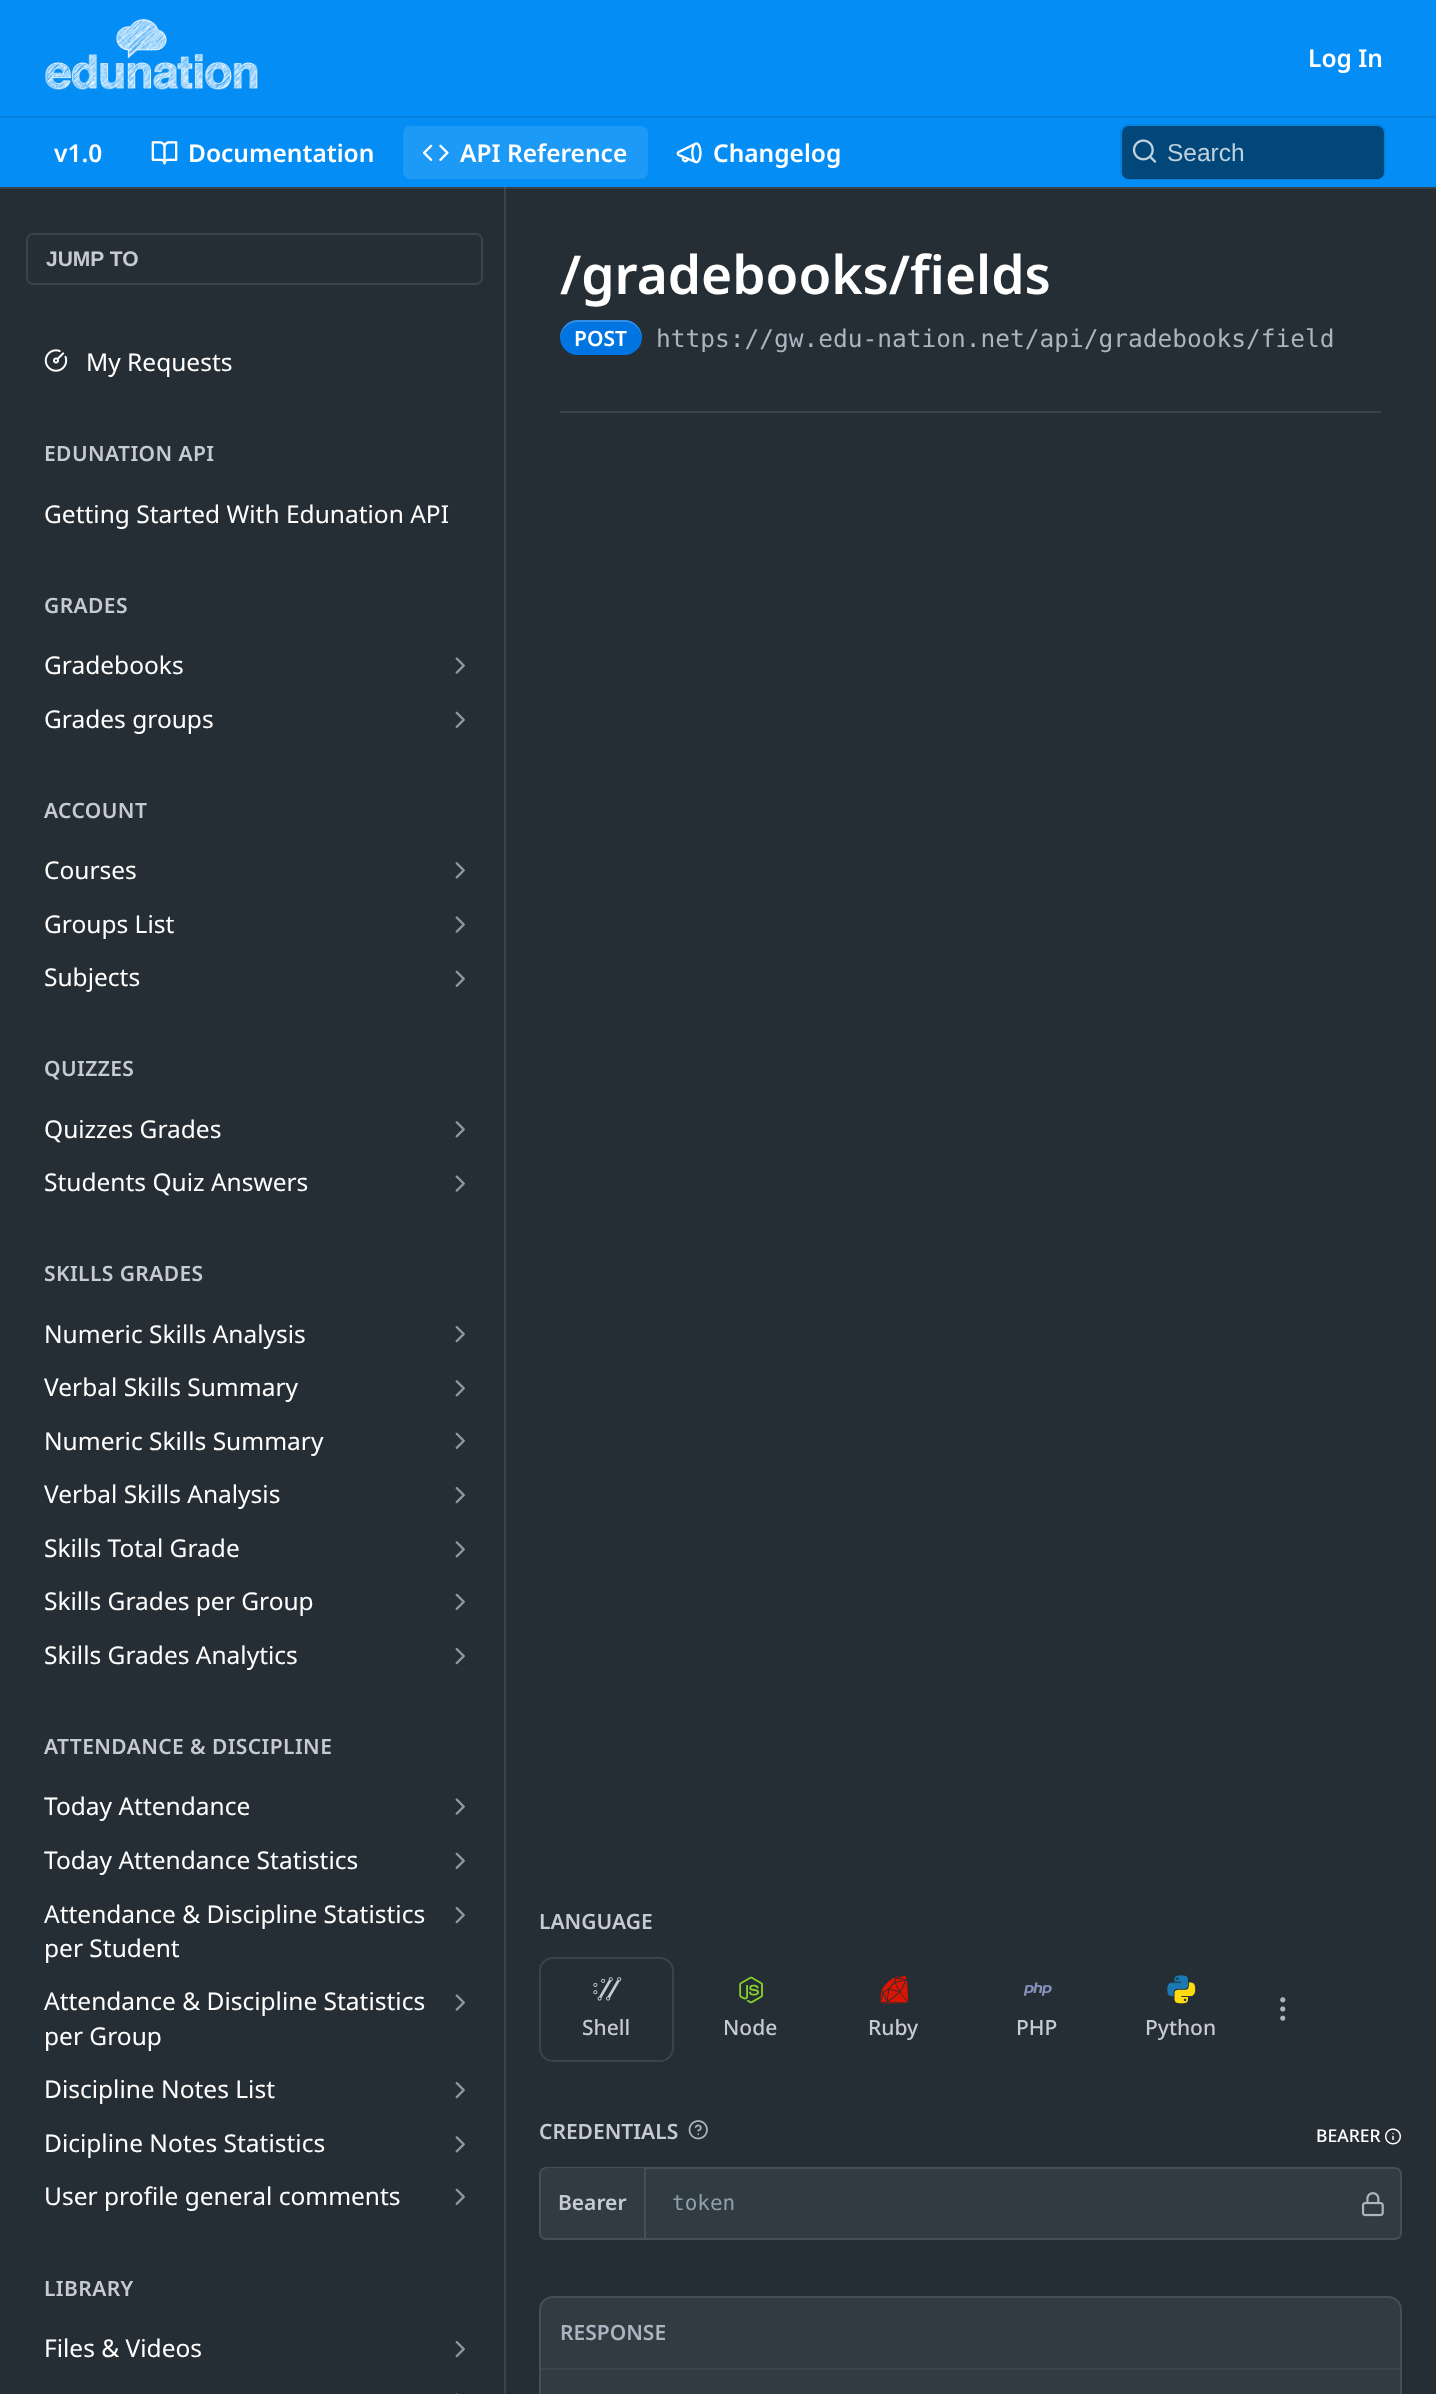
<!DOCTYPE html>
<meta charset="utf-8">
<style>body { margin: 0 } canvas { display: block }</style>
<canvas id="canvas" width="1436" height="2394"></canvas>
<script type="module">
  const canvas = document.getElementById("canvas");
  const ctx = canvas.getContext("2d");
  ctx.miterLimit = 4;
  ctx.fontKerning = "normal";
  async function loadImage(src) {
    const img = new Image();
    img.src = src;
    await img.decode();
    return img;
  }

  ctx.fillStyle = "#242e34";
  ctx.fillRect(0, 0, 1436, 2394);
  ctx.fillStyle = "#3a4348";
  ctx.beginPath();
  ctx.moveTo(2, 187);
  ctx.lineTo(504, 187);
  ctx.lineTo(504, 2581);
  ctx.lineTo(506, 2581);
  ctx.lineTo(506, 187);
  ctx.closePath();
  ctx.fill();
  ctx.fillStyle = "rgba(255, 255, 255, 0.1)";
  ctx.beginPath();
  ctx.moveTo(0, 187);
  ctx.lineTo(0, 189);
  ctx.lineTo(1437, 189);
  ctx.lineTo(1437, 2);
  ctx.lineTo(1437, 187);
  ctx.closePath();
  ctx.fill();
  ctx.fillStyle = "#048ef5";
  ctx.fillRect(0, 0, 1436, 187);
  ctx.fillStyle = "#0480dd";
  ctx.fillRect(0, 116, 1436, 2);
  ctx.drawImage(await loadImage("img1.png"), 45, 19, 213, 71);
  ctx.font = "600 24.5px Noto Sans";
  ctx.fillStyle = "#ffffff";
  ctx.fillText("Log In", 1308, 67);
  ctx.fillText("v1.0", 54, 162);
  ctx.drawImage(await loadImage("img2.png"), 151, 141, 27, 24);
  ctx.fillText("Documentation", 188, 162);
  ctx.fillStyle = "#1d99f6";
  ctx.beginPath();
  ctx.roundRect(403, 126, 245, 53, 7);
  ctx.fill();
  ctx.drawImage(await loadImage("img3.png"), 422, 144, 27, 17);
  ctx.fillStyle = "#ffffff";
  ctx.fillText("API Reference", 460, 162);
  ctx.drawImage(await loadImage("img4.png"), 676, 142, 26, 22);
  ctx.fillText("Changelog", 713, 162);
  ctx.beginPath();
  ctx.roundRect(1121, 125, 264, 54, 8);
  ctx.strokeStyle = "#0480dd";
  ctx.lineWidth = 2;
  ctx.stroke();
  ctx.fillStyle = "rgba(0, 0, 0, 0.5)";
  ctx.beginPath();
  ctx.roundRect(1122, 126, 262, 53, 7);
  ctx.fill();
  ctx.drawImage(await loadImage("img5.png"), 1132, 139, 25, 24);
  ctx.font = "24.5px Liberation Sans";
  ctx.fillStyle = "#c0d1de";
  ctx.fillText("Search", 1167, 161);
  ctx.beginPath();
  ctx.roundRect(27, 234, 455, 50, 6);
  ctx.strokeStyle = "#3a4348";
  ctx.stroke();
  ctx.font = "bold 21px Liberation Sans";
  ctx.fillStyle = "#c6cbd3";
  ctx.fillText("JUMP TO", 46, 266);
  ctx.drawImage(await loadImage("img6.png"), 44, 349, 24, 23);
  ctx.font = "24.5px Noto Sans";
  ctx.fillStyle = "#ffffff";
  ctx.fillText("My Requests", 86, 371);
  ctx.letterSpacing = "0.4px";
  ctx.font = "600 21px Noto Sans";
  ctx.fillStyle = "#c6cbd3";
  ctx.fillText("EDUNATION API", 44, 461);
  ctx.letterSpacing = "0px";
  ctx.font = "24.5px Noto Sans";
  ctx.fillStyle = "#ffffff";
  ctx.fillText("Getting Started With Edunation API", 44, 523);
  ctx.letterSpacing = "0.4px";
  ctx.font = "600 21px Noto Sans";
  ctx.fillStyle = "#c6cbd3";
  ctx.fillText("GRADES", 44, 613);
  ctx.letterSpacing = "0px";
  ctx.font = "24.5px Noto Sans";
  ctx.fillStyle = "#ffffff";
  ctx.fillText("Gradebooks", 44, 674);
  ctx.drawImage(await loadImage("img7.png"), 455, 657, 10, 17);
  ctx.fillText("Grades groups", 44, 728);
  ctx.drawImage(await loadImage("img8.png"), 455, 711, 10, 17);
  ctx.letterSpacing = "0.4px";
  ctx.font = "600 21px Noto Sans";
  ctx.fillStyle = "#c6cbd3";
  ctx.fillText("ACCOUNT", 44, 818);
  ctx.letterSpacing = "0px";
  ctx.font = "24.5px Noto Sans";
  ctx.fillStyle = "#ffffff";
  ctx.fillText("Courses", 44, 879);
  ctx.drawImage(await loadImage("img9.png"), 455, 862, 10, 17);
  ctx.fillText("Groups List", 44, 933);
  ctx.drawImage(await loadImage("img7.png"), 455, 916, 10, 17);
  ctx.fillText("Subjects", 44, 986);
  ctx.drawImage(await loadImage("img8.png"), 455, 970, 10, 17);
  ctx.letterSpacing = "0.4px";
  ctx.font = "600 21px Noto Sans";
  ctx.fillStyle = "#c6cbd3";
  ctx.fillText("QUIZZES", 44, 1076);
  ctx.letterSpacing = "0px";
  ctx.font = "24.5px Noto Sans";
  ctx.fillStyle = "#ffffff";
  ctx.fillText("Quizzes Grades", 44, 1138);
  ctx.drawImage(await loadImage("img9.png"), 455, 1121, 10, 17);
  ctx.fillText("Students Quiz Answers", 44, 1191);
  ctx.drawImage(await loadImage("img7.png"), 455, 1175, 10, 17);
  ctx.letterSpacing = "0.4px";
  ctx.font = "600 21px Noto Sans";
  ctx.fillStyle = "#c6cbd3";
  ctx.fillText("SKILLS GRADES", 44, 1281);
  ctx.letterSpacing = "0px";
  ctx.font = "24.5px Noto Sans";
  ctx.fillStyle = "#ffffff";
  ctx.fillText("Numeric Skills Analysis", 44, 1343);
  ctx.drawImage(await loadImage("img10.png"), 455, 1326, 10, 17);
  ctx.fillText("Verbal Skills Summary", 44, 1396);
  ctx.drawImage(await loadImage("img9.png"), 455, 1380, 10, 17);
  ctx.fillText("Numeric Skills Summary", 44, 1450);
  ctx.drawImage(await loadImage("img8.png"), 455, 1432, 10, 17);
  ctx.fillText("Verbal Skills Analysis", 44, 1503);
  ctx.drawImage(await loadImage("img10.png"), 455, 1487, 10, 17);
  ctx.fillText("Skills Total Grade", 44, 1557);
  ctx.drawImage(await loadImage("img9.png"), 455, 1541, 10, 17);
  ctx.fillText("Skills Grades per Group", 44, 1610);
  ctx.drawImage(await loadImage("img8.png"), 455, 1593, 10, 17);
  ctx.fillText("Skills Grades Analytics", 44, 1664);
  ctx.drawImage(await loadImage("img10.png"), 455, 1648, 10, 17);
  ctx.letterSpacing = "0.4px";
  ctx.font = "600 21px Noto Sans";
  ctx.fillStyle = "#c6cbd3";
  ctx.fillText("ATTENDANCE & DISCIPLINE", 44, 1754);
  ctx.letterSpacing = "0px";
  ctx.font = "24.5px Noto Sans";
  ctx.fillStyle = "#ffffff";
  ctx.fillText("Today Attendance", 44, 1815);
  ctx.drawImage(await loadImage("img7.png"), 455, 1798, 10, 17);
  ctx.fillText("Today Attendance Statistics", 44, 1869);
  ctx.drawImage(await loadImage("img8.png"), 455, 1852, 10, 17);
  ctx.fillText("Attendance & Discipline Statistics", 44, 1923);
  ctx.fillText("per Student", 44, 1957);
  ctx.drawImage(await loadImage("img10.png"), 455, 1907, 10, 17);
  ctx.fillText("Attendance & Discipline Statistics", 44, 2010);
  ctx.fillText("per Group", 44, 2045);
  ctx.drawImage(await loadImage("img7.png"), 455, 1994, 10, 17);
  ctx.fillText("Discipline Notes List", 44, 2098);
  ctx.drawImage(await loadImage("img10.png"), 455, 2082, 10, 17);
  ctx.fillText("Dicipline Notes Statistics", 44, 2152);
  ctx.drawImage(await loadImage("img9.png"), 455, 2136, 10, 17);
  ctx.fillText("User profile general comments", 44, 2205);
  ctx.drawImage(await loadImage("img8.png"), 455, 2188, 10, 17);
  ctx.letterSpacing = "0.4px";
  ctx.font = "600 21px Noto Sans";
  ctx.fillStyle = "#c6cbd3";
  ctx.fillText("LIBRARY", 44, 2296);
  ctx.letterSpacing = "0px";
  ctx.font = "24.5px Noto Sans";
  ctx.fillStyle = "#ffffff";
  ctx.fillText("Files & Videos", 44, 2357);
  ctx.drawImage(await loadImage("img10.png"), 455, 2341, 10, 17);
  ctx.drawImage(await loadImage("img11.png"), 456, 2393, 2, 1);
  ctx.fillStyle = "#3a4348";
  ctx.fillRect(560, 411, 821, 2);
  ctx.font = "600 53.25px Noto Sans";
  ctx.fillStyle = "#ffffff";
  ctx.fillText("/gradebooks/fields", 560, 294);
  ctx.fillStyle = "#0074e1";
  ctx.beginPath();
  ctx.roundRect(560, 320, 82, 35, 17.5);
  ctx.fill();
  ctx.fillStyle = "rgba(255, 255, 255, 0.2)";
  ctx.beginPath();
  ctx.moveTo(578, 322);
  ctx.lineTo(625, 322);
  ctx.bezierCurveTo(634, 322, 641, 329, 642, 339);
  ctx.lineTo(642, 338);
  ctx.bezierCurveTo(642, 328, 634, 320, 624, 320);
  ctx.lineTo(578, 320);
  ctx.bezierCurveTo(568, 320, 560, 328, 560, 338);
  ctx.lineTo(560, 339);
  ctx.bezierCurveTo(561, 329, 568, 322, 578, 322);
  ctx.closePath();
  ctx.fill();
  ctx.font = "600 21px Noto Sans";
  ctx.fillStyle = "#ffffff";
  ctx.fillText("POST", 574, 346);
  ctx.font = "24.5px DejaVu Sans Mono";
  ctx.fillStyle = "#adb4c1";
  ctx.fillText("https://gw.edu-nation.net/api/gradebooks/field", 656, 347);
  ctx.font = "600 21px Noto Sans";
  ctx.fillStyle = "#c6cbd3";
  ctx.fillText("LANGUAGE", 539, 1929);
  ctx.drawImage(await loadImage("img12.png"), 1280, 1997, 6, 24);
  ctx.beginPath();
  ctx.roundRect(540, 1958, 133, 103, 13);
  ctx.stroke();
  ctx.drawImage(await loadImage("img13.png"), 593, 1977, 29, 24);
  ctx.font = "500 21px Noto Sans";
  ctx.fillText("Shell", 582, 2035);
  ctx.drawImage(await loadImage("img14.png"), 739, 1976, 24, 28);
  ctx.fillText("Node", 723, 2035);
  ctx.drawImage(await loadImage("img15.png"), 880, 1975, 28, 29);
  ctx.fillText("Ruby", 868, 2035);
  ctx.drawImage(await loadImage("img16.png"), 1023, 1982, 29, 14);
  ctx.fillText("PHP", 1016, 2035);
  ctx.drawImage(await loadImage("img17.png"), 1167, 1975, 21, 22);
  ctx.drawImage(await loadImage("img18.png"), 1174, 1982, 22, 22);
  ctx.fillText("Python", 1145, 2035);
  ctx.font = "600 21px Noto Sans";
  ctx.fillText("CREDENTIALS", 539, 2139);
  ctx.drawImage(await loadImage("img19.png"), 688, 2120, 20, 20);
  ctx.font = "500 17.5px Noto Sans";
  ctx.fillStyle = "#ffffff";
  ctx.fillText("BEARER", 1316, 2142);
  ctx.drawImage(await loadImage("img20.png"), 1385, 2128, 16, 17);
  ctx.fillStyle = "#303b42";
  ctx.beginPath();
  ctx.roundRect(539, 2167, 863, 73, 7);
  ctx.fill();
  ctx.beginPath();
  ctx.roundRect(540, 2168, 861, 71, 6);
  ctx.strokeStyle = "rgba(255, 255, 255, 0.1)";
  ctx.stroke();
  ctx.beginPath();
  ctx.roundRect(541, 2168, 105, 70, [7, 0, 0, 7]);
  ctx.fill();
  ctx.fillStyle = "#454f55";
  ctx.fillRect(644, 2168, 2, 70);
  ctx.font = "600 21px Noto Sans";
  ctx.fillStyle = "#c6cbd3";
  ctx.fillText("Bearer", 558, 2210);
  ctx.font = "21px DejaVu Sans Mono";
  ctx.fillStyle = "#939eae";
  ctx.fillText("token", 672, 2210);
  ctx.drawImage(await loadImage("img21.png"), 1361, 2192, 23, 25);
  ctx.fillStyle = "#303b42";
  ctx.beginPath();
  ctx.roundRect(539, 2296, 863, 98, [14, 14, 0, 0]);
  ctx.fill();
  ctx.beginPath();
  ctx.roundRect(540, 2297, 861, 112, 13);
  ctx.stroke();
  ctx.fillStyle = "#3a454b";
  ctx.fillRect(541, 2368, 859, 2);
  ctx.font = "600 21px Noto Sans";
  ctx.fillStyle = "#adb4c1";
  ctx.fillText("RESPONSE", 560, 2340);
</script>
